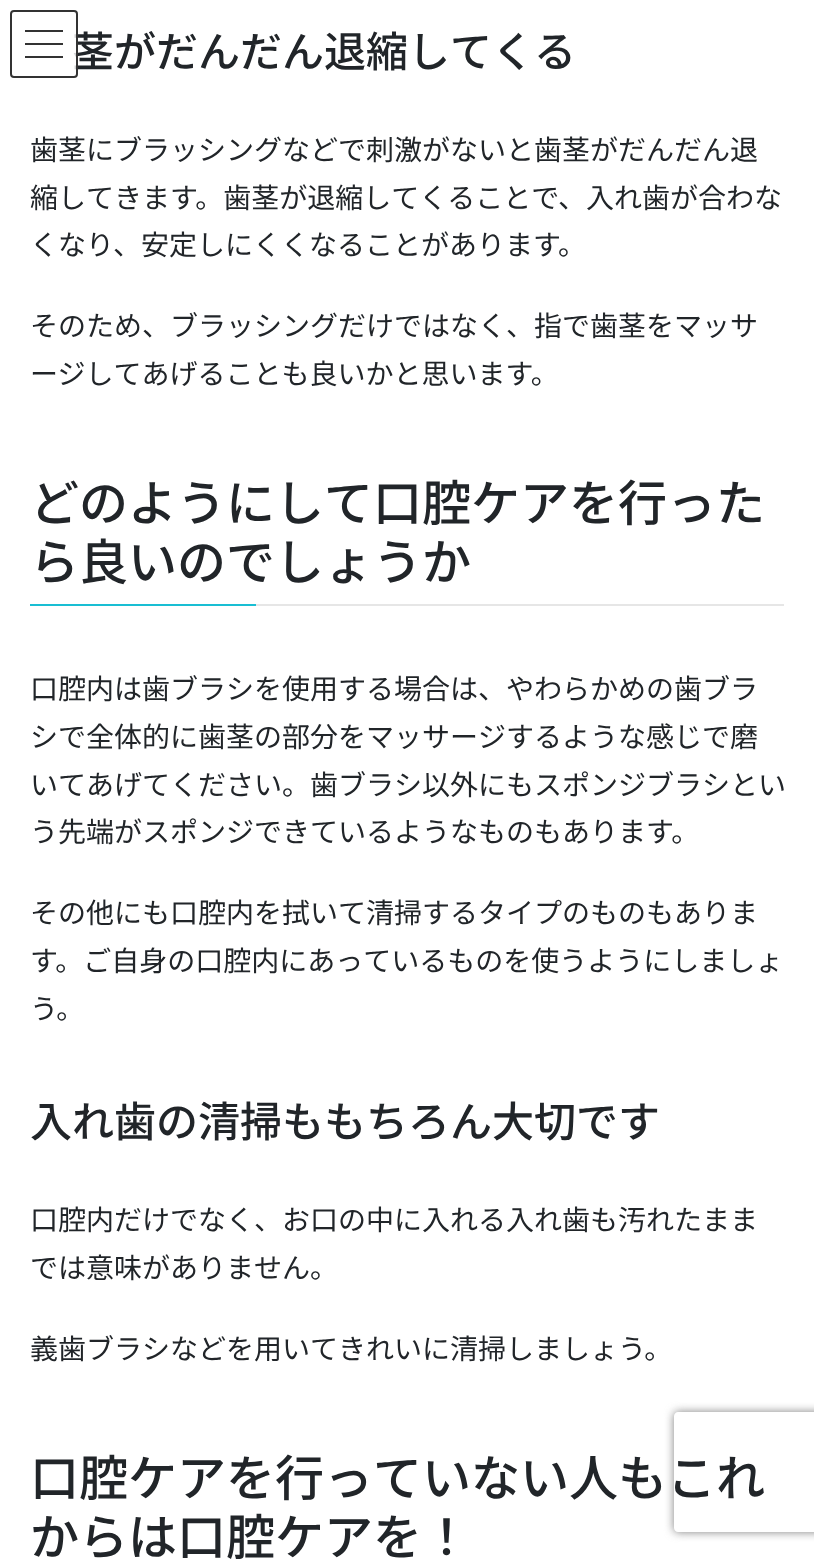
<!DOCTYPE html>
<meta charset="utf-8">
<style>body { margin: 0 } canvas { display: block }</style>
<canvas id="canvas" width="814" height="1560"></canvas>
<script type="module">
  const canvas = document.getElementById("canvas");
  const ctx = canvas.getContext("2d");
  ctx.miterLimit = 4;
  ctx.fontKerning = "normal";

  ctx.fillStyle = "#ffffff";
  ctx.fillRect(0, 0, 814, 1560);
  ctx.font = "500 42px Noto Sans JP";
  ctx.fillStyle = "#212529";
  ctx.fillText("茎がだんだん退縮してくる", 72, 67);
  ctx.fillStyle = "rgba(255, 255, 255, 0.8)";
  ctx.beginPath();
  ctx.roundRect(10, 10, 68, 68, 4);
  ctx.fill();
  ctx.fillStyle = "rgba(0, 0, 0, 0.8)";
  ctx.fillRect(25, 30, 38, 2);
  ctx.fillRect(25, 43, 38, 2);
  ctx.fillRect(25, 56, 38, 2);
  ctx.beginPath();
  ctx.roundRect(11, 11, 66, 66, 3);
  ctx.strokeStyle = "#333333";
  ctx.lineWidth = 2;
  ctx.stroke();
  ctx.font = "28px Noto Sans JP";
  ctx.fillStyle = "#212529";
  ctx.fillText("歯茎にブラッシングなどで刺激がないと歯茎がだんだん退", 30, 160);
  ctx.fillText("縮してきます。歯茎が退縮してくることで、入れ歯が合わな", 30, 208);
  ctx.fillText("くなり、安定しにくくなることがあります。", 30, 255);
  ctx.fillText("そのため、ブラッシングだけではなく、指で歯茎をマッサ", 30, 336);
  ctx.fillText("ージしてあげることも良いかと思います。", 30, 384);
  ctx.fillStyle = "#e6e6e6";
  ctx.fillRect(256, 604, 528, 2);
  ctx.font = "500 49px Noto Sans JP";
  ctx.fillStyle = "#212529";
  ctx.fillText("どのようにして口腔ケアを行った", 30, 521);
  ctx.fillText("ら良いのでしょうか", 30, 580);
  ctx.fillStyle = "#19bed3";
  ctx.fillRect(30, 604, 226, 2);
  ctx.font = "28px Noto Sans JP";
  ctx.fillStyle = "#212529";
  ctx.fillText("口腔内は歯ブラシを使用する場合は、やわらかめの歯ブラ", 30, 699);
  ctx.fillText("シで全体的に歯茎の部分をマッサージするような感じで磨", 30, 747);
  ctx.fillText("いてあげてください。歯ブラシ以外にもスポンジブラシとい", 30, 795);
  ctx.fillText("う先端がスポンジできているようなものもあります。", 30, 842);
  ctx.fillText("その他にも口腔内を拭いて清掃するタイプのものもありま", 30, 923);
  ctx.fillText("す。ご自身の口腔内にあっているものを使うようにしましょ", 30, 971);
  ctx.fillText("う。", 30, 1019);
  ctx.font = "500 42px Noto Sans JP";
  ctx.fillText("入れ歯の清掃ももちろん大切です", 30, 1137);
  ctx.font = "28px Noto Sans JP";
  ctx.fillText("口腔内だけでなく、お口の中に入れる入れ歯も汚れたまま", 30, 1230);
  ctx.fillText("では意味がありません。", 30, 1278);
  ctx.fillText("義歯ブラシなどを用いてきれいに清掃しましょう。", 30, 1359);
  ctx.font = "500 49px Noto Sans JP";
  ctx.fillText("口腔ケアを行っていない人もこれ", 30, 1496);
  ctx.fillText("からは口腔ケアを！", 30, 1555);
  ctx.save();
  ctx.beginPath();
  ctx.moveTo(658, 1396);
  ctx.lineTo(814, 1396);
  ctx.lineTo(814, 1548);
  ctx.lineTo(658, 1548);
  ctx.closePath();
  ctx.moveTo(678, 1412);
  ctx.lineTo(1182, 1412);
  ctx.bezierCurveTo(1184, 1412, 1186, 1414, 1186, 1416);
  ctx.lineTo(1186, 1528);
  ctx.bezierCurveTo(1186, 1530, 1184, 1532, 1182, 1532);
  ctx.lineTo(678, 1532);
  ctx.bezierCurveTo(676, 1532, 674, 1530, 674, 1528);
  ctx.lineTo(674, 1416);
  ctx.bezierCurveTo(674, 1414, 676, 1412, 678, 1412);
  ctx.closePath();
  ctx.clip("evenodd");
  ctx.fillStyle = "#808080";
  ctx.filter = "blur(5px)";
  ctx.beginPath();
  ctx.roundRect(674, 1412, 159, 120, 4);
  ctx.fill();
  ctx.filter = "none";
  ctx.restore();
</script>
